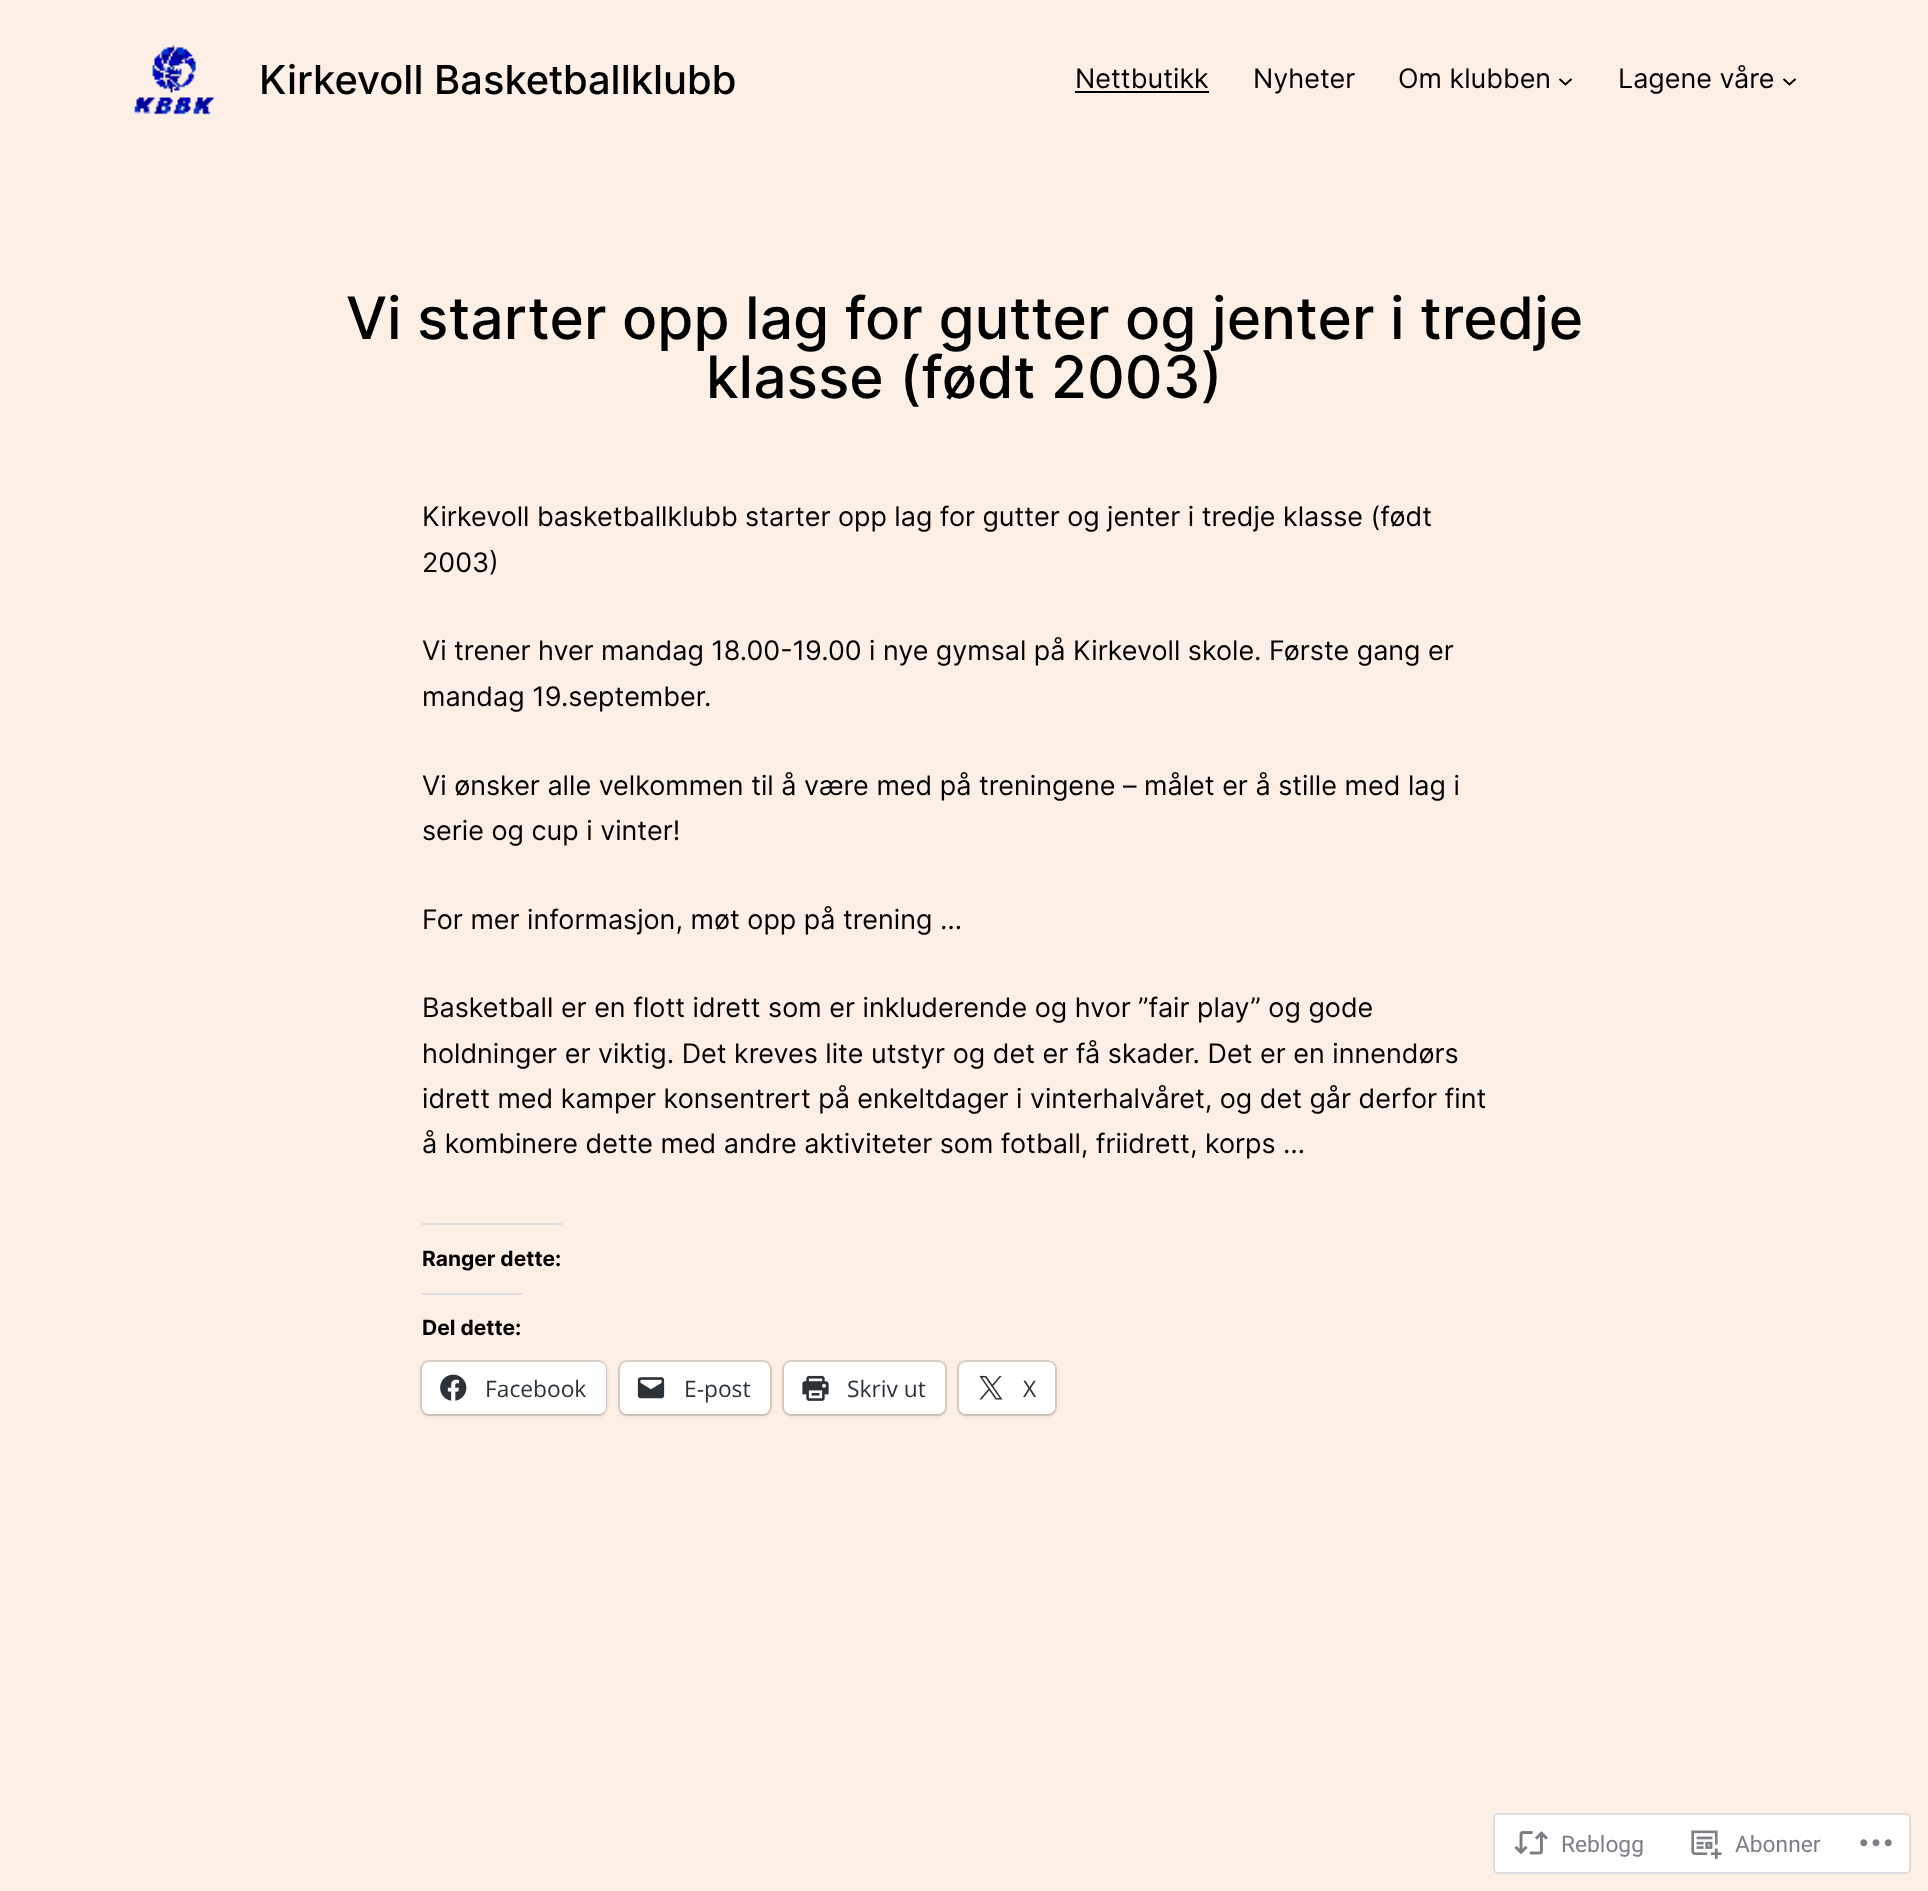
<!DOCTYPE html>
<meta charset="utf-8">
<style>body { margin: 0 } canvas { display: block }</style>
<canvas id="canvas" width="1928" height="1891"></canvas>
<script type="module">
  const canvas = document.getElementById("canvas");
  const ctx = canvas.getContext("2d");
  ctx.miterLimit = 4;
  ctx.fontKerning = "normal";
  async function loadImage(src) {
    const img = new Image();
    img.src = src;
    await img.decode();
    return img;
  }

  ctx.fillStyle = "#fcefe6";
  ctx.fillRect(0, 0, 1928, 1891);
  ctx.drawImage(await loadImage("img1.png"), 134, 45, 80, 70);
  ctx.font = "500 39.9px Inter";
  ctx.fillStyle = "#000000";
  ctx.fillText("Kirkevoll Basketballklubb", 259, 94);
  ctx.font = "26.95px Inter";
  ctx.fillText("Nettbutikk", 1075, 88);
  ctx.fillRect(1075, 91, 134, 2);
  ctx.fillText("Nyheter", 1253, 88);
  ctx.fillText("Om klubben", 1398, 88);
  ctx.beginPath();
  ctx.moveTo(1559.5, 79);
  ctx.lineTo(1565.5, 84.5);
  ctx.lineTo(1571.5, 79);
  ctx.strokeStyle = "#000000";
  ctx.lineWidth = 2;
  ctx.stroke();
  ctx.fillText("Lagene våre", 1618, 88);
  ctx.beginPath();
  ctx.moveTo(1783.5, 79);
  ctx.lineTo(1789.5, 84.5);
  ctx.lineTo(1795.5, 79);
  ctx.stroke();
  ctx.font = "500 58.6px 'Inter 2'";
  ctx.fillText("Vi starter opp lag for gutter og jenter i tredje", 346, 339);
  ctx.fillText("klasse (født 2003)", 706, 398);
  ctx.wordSpacing = "-0.1px";
  ctx.font = "26.95px Inter";
  ctx.fillText("Kirkevoll basketballklubb starter opp lag for gutter og jenter i tredje klasse (født", 422, 526);
  ctx.wordSpacing = "0px";
  ctx.fillText("2003)", 422, 572);
  ctx.wordSpacing = "-0.1px";
  ctx.fillText("Vi trener hver mandag 18.00-19.00 i nye gymsal på Kirkevoll skole. Første gang er", 422, 660);
  ctx.wordSpacing = "0px";
  ctx.fillText("mandag 19.september.", 422, 706);
  ctx.fillText("Vi ønsker alle velkommen til å være med på treningene – målet er å stille med lag i", 422, 795);
  ctx.fillText("serie og cup i vinter!", 422, 840);
  ctx.fillText("For mer informasjon, møt opp på trening …", 422, 929);
  ctx.fillText("Basketball er en flott idrett som er inkluderende og hvor ”fair play” og gode", 422, 1017);
  ctx.fillText("holdninger er viktig. Det kreves lite utstyr og det er få skader. Det er en innendørs", 422, 1063);
  ctx.wordSpacing = "-0.1px";
  ctx.fillText("idrett med kamper konsentrert på enkeltdager i vinterhalvåret, og det går derfor fint", 422, 1108);
  ctx.fillText("å kombinere dette med andre aktiviteter som fotball, friidrett, korps …", 422, 1153);
  ctx.fillStyle = "#dcdcde";
  ctx.fillRect(422, 1223, 140, 2);
  ctx.wordSpacing = "0px";
  ctx.font = "bold 21px Inter";
  ctx.fillStyle = "#000000";
  ctx.fillText("Ranger dette:", 422, 1266);
  ctx.fillStyle = "#dcdcde";
  ctx.fillRect(422, 1293, 100, 2);
  ctx.fillStyle = "#000000";
  ctx.fillText("Del dette:", 422, 1335);
  ctx.beginPath();
  ctx.roundRect(421, 1361, 185, 54, 8);
  ctx.strokeStyle = "#ded2ca";
  ctx.stroke();
  ctx.fillStyle = "rgba(0, 0, 0, 0.12)";
  ctx.filter = "blur(2px)";
  ctx.beginPath();
  ctx.roundRect(422, 1363, 184, 53, 7);
  ctx.fill();
  ctx.filter = "none";
  ctx.fillStyle = "#ffffff";
  ctx.beginPath();
  ctx.roundRect(422, 1362, 184, 52, 7);
  ctx.fill();
  ctx.drawImage(await loadImage("img2.png"), 440, 1374, 27, 27);
  ctx.font = "22.75px Open Sans";
  ctx.fillStyle = "#2c3338";
  ctx.fillText("Facebook", 485, 1397);
  ctx.beginPath();
  ctx.roundRect(619, 1361, 152, 54, 8);
  ctx.stroke();
  ctx.fillStyle = "rgba(0, 0, 0, 0.12)";
  ctx.filter = "blur(2px)";
  ctx.beginPath();
  ctx.roundRect(620, 1363, 150, 53, 7);
  ctx.fill();
  ctx.filter = "none";
  ctx.fillStyle = "#ffffff";
  ctx.beginPath();
  ctx.roundRect(620, 1362, 150, 52, 7);
  ctx.fill();
  ctx.drawImage(await loadImage("img3.png"), 637, 1377, 28, 22);
  ctx.fillStyle = "#2c3338";
  ctx.fillText("E-post", 684, 1397);
  ctx.beginPath();
  ctx.roundRect(783, 1361, 163, 54, 8);
  ctx.stroke();
  ctx.fillStyle = "rgba(0, 0, 0, 0.12)";
  ctx.filter = "blur(2px)";
  ctx.beginPath();
  ctx.roundRect(784, 1363, 161, 53, 7);
  ctx.fill();
  ctx.filter = "none";
  ctx.fillStyle = "#ffffff";
  ctx.beginPath();
  ctx.roundRect(784, 1362, 161, 52, 7);
  ctx.fill();
  ctx.drawImage(await loadImage("img4.png"), 802, 1375, 27, 26);
  ctx.fillStyle = "#2c3338";
  ctx.fillText("Skriv ut", 847, 1397);
  ctx.beginPath();
  ctx.roundRect(958, 1361, 98, 54, 8);
  ctx.stroke();
  ctx.fillStyle = "rgba(0, 0, 0, 0.12)";
  ctx.filter = "blur(2px)";
  ctx.beginPath();
  ctx.roundRect(959, 1363, 96, 53, 7);
  ctx.fill();
  ctx.filter = "none";
  ctx.fillStyle = "#ffffff";
  ctx.beginPath();
  ctx.roundRect(959, 1362, 96, 52, 7);
  ctx.fill();
  ctx.drawImage(await loadImage("img5.png"), 979, 1375, 24, 25);
  ctx.fillStyle = "#2c3338";
  ctx.fillText("X", 1023, 1397);
  ctx.fillStyle = "#ffffff";
  ctx.beginPath();
  ctx.roundRect(1494, 1814, 416, 59, 4);
  ctx.fill();
  ctx.strokeStyle = "#dddcde";
  ctx.stroke();
  ctx.drawImage(await loadImage("img6.png"), 1514, 1831, 34, 24);
  ctx.font = "22.75px Roboto";
  ctx.fillStyle = "#7b7e84";
  ctx.fillText("Reblogg", 1561, 1852);
  ctx.drawImage(await loadImage("img7.png"), 1691, 1830, 31, 29);
  ctx.fillText("Abonner", 1735, 1852);
  ctx.drawImage(await loadImage("img8.png"), 1860, 1839, 32, 8);
</script>
